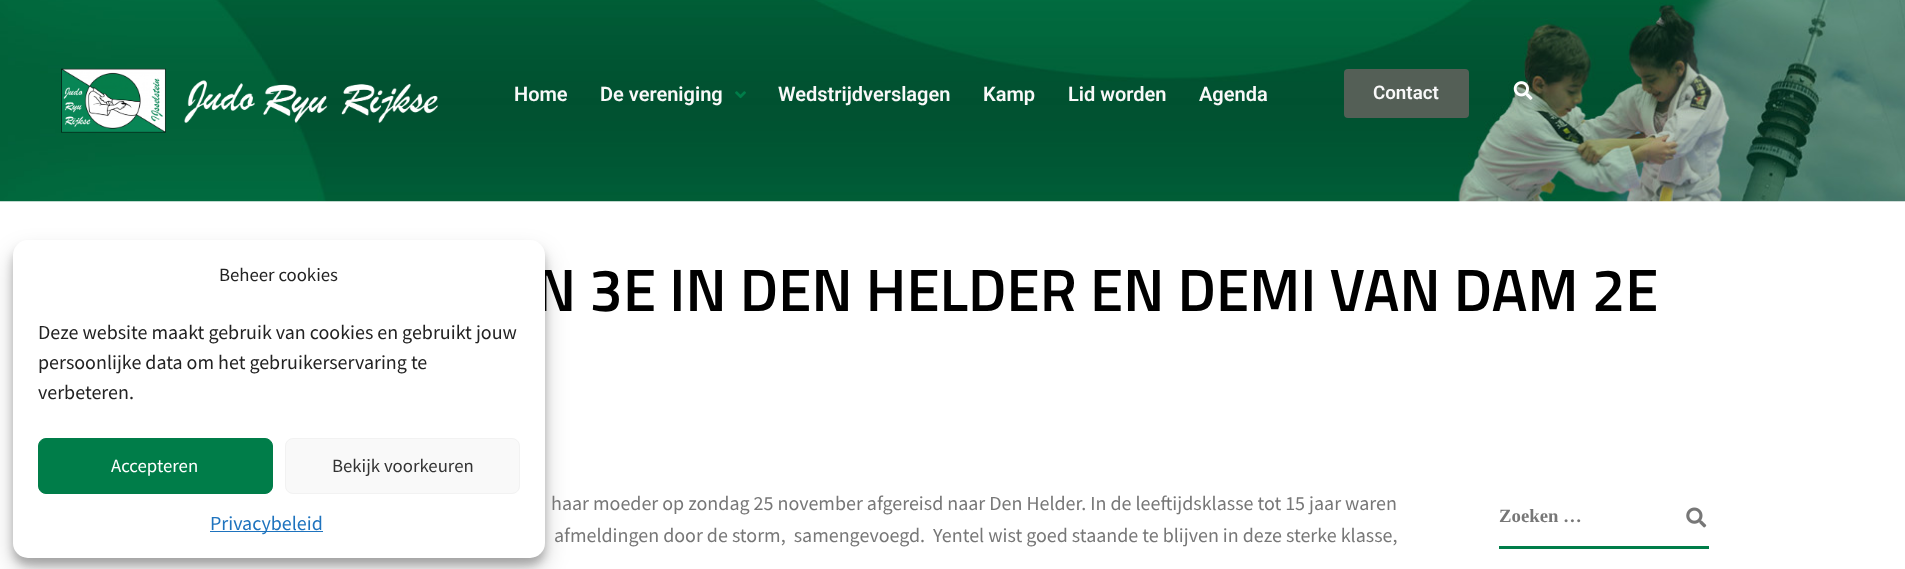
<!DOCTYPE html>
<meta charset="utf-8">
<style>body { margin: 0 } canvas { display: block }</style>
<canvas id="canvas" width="1905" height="569"></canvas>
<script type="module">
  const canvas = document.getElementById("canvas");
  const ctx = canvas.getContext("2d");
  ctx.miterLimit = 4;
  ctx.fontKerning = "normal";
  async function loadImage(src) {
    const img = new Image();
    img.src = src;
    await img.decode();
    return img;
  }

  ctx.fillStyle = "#ffffff";
  ctx.fillRect(0, 0, 1905, 569);
  ctx.fillStyle = "rgba(0, 0, 0, 0.23)";
  ctx.filter = "blur(4px)";
  ctx.beginPath();
  ctx.roundRect(13, 248, 532, 317, 15);
  ctx.fill();
  ctx.filter = "none";
  ctx.fillStyle = "rgba(0, 0, 0, 0.19)";
  ctx.filter = "blur(12.5px)";
  ctx.beginPath();
  ctx.roundRect(13, 253, 532, 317, 15);
  ctx.fill();
  ctx.filter = "none";
  ctx.font = "600 60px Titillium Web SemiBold";
  ctx.fillStyle = "#000000";
  ctx.fillText("N 3E IN DEN HELDER EN DEMI VAN DAM 2E", 535, 311);
  ctx.fillStyle = "#ffffff";
  ctx.beginPath();
  ctx.roundRect(13, 240, 532, 318, 15);
  ctx.fill();
  ctx.font = "18.75px Source Sans Pro";
  ctx.fillStyle = "#222222";
  ctx.fillText("Beheer cookies", 219, 281);
  ctx.font = "20px Source Sans Pro";
  ctx.fillText("Deze website maakt gebruik van cookies en gebruikt jouw", 38, 339);
  ctx.fillText("persoonlijke data om het gebruikerservaring te", 38, 369);
  ctx.fillText("verbeteren.", 38, 399);
  ctx.fillStyle = "#007d49";
  ctx.beginPath();
  ctx.roundRect(38.5, 438.5, 234, 55, 7.5);
  ctx.fill();
  ctx.strokeStyle = "#007d49";
  ctx.stroke();
  ctx.font = "18.75px Source Sans Pro";
  ctx.fillStyle = "#ffffff";
  ctx.fillText("Accepteren", 111, 472);
  ctx.fillStyle = "#f9f9f9";
  ctx.beginPath();
  ctx.roundRect(285.5, 438.5, 234, 55, 7.5);
  ctx.fill();
  ctx.strokeStyle = "#f2f2f2";
  ctx.stroke();
  ctx.fillStyle = "#333333";
  ctx.fillText("Bekijk voorkeuren", 332, 472);
  ctx.fillStyle = "#1e73be";
  ctx.fillRect(210, 531, 113, 1);
  ctx.font = "20px Source Sans Pro";
  ctx.fillText("Privacybeleid", 210, 530);
  ctx.drawImage(await loadImage("img1.png"), 0, 0, 1905, 202);
  ctx.drawImage(await loadImage("img2.png"), 61, 68, 377, 65);
  ctx.font = "600 20px Roboto";
  ctx.fillStyle = "#f9f9f9";
  ctx.fillText("Home", 514, 101);
  ctx.fillText("De vereniging", 600, 101);
  ctx.drawImage(await loadImage("img3.png"), 735, 91, 11, 8);
  ctx.fillText("Wedstrijdverslagen", 778, 101);
  ctx.fillText("Kamp", 983, 101);
  ctx.fillText("Lid worden", 1068, 101);
  ctx.fillText("Agenda", 1199, 101);
  ctx.fillStyle = "#545f56";
  ctx.beginPath();
  ctx.roundRect(1344, 69, 125, 49, 4);
  ctx.fill();
  ctx.font = "600 18.75px Roboto";
  ctx.fillStyle = "#f9f9f9";
  ctx.fillText("Contact", 1373, 99);
  ctx.drawImage(await loadImage("img4.png"), 1513, 81, 20, 19);
  ctx.font = "20px Source Sans Pro";
  ctx.fillStyle = "#777777";
  ctx.fillText("haar moeder op zondag 25 november afgereisd naar Den Helder. In de leeftijdsklasse tot 15 jaar waren", 551, 510);
  ctx.fillText("afmeldingen door de storm,  samengevoegd.  Yentel wist goed staande te blijven in deze sterke klasse,", 554, 542);
  ctx.fillStyle = "#007d49";
  ctx.fillRect(1499, 546, 210, 3);
  ctx.font = "bold 18.75px Liberation Serif";
  ctx.fillStyle = "#777777";
  ctx.fillText("Zoeken …", 1499, 522);
  ctx.drawImage(await loadImage("img5.png"), 1686, 507, 21, 21);
</script>
